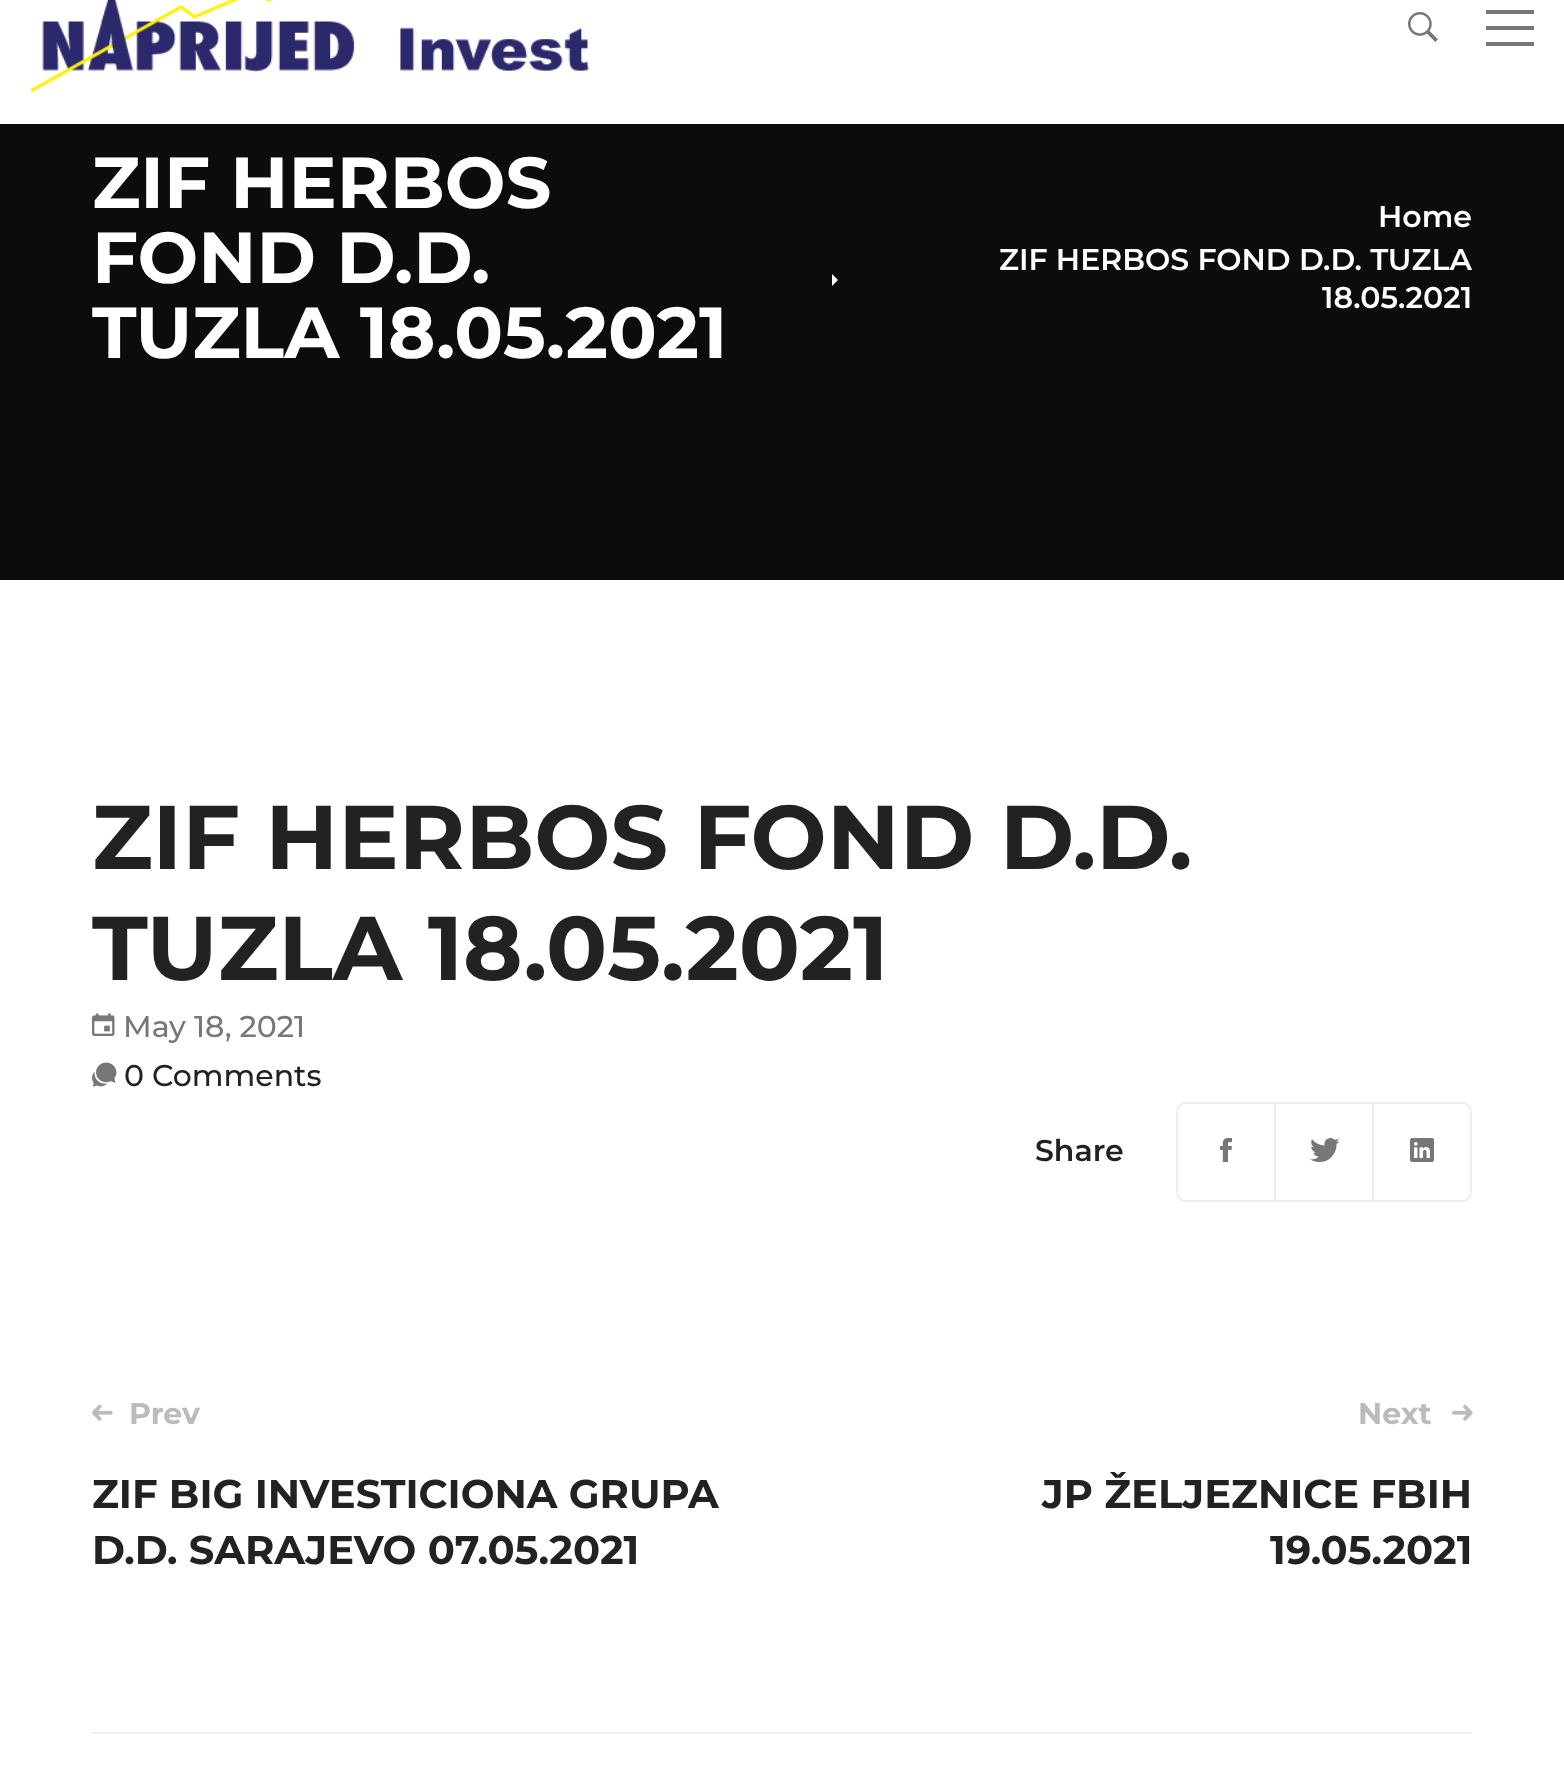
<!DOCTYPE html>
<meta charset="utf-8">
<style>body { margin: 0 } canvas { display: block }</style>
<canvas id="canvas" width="1564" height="1782"></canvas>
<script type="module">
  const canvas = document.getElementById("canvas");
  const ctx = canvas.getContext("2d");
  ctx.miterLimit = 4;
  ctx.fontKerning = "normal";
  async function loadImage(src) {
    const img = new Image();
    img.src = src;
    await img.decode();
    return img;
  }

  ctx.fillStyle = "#ffffff";
  ctx.fillRect(0, 0, 1564, 1782);
  ctx.drawImage(await loadImage("img1.png"), 30, 0, 559, 92);
  ctx.drawImage(await loadImage("img2.png"), 1408, 12, 30, 30);
  ctx.fillStyle = "#777777";
  ctx.fillRect(1486, 26, 48, 4);
  ctx.fillRect(1486, 10, 48, 4);
  ctx.fillRect(1486, 42, 48, 4);
  ctx.fillStyle = "#0c0c0c";
  ctx.fillRect(0, 124, 1564, 456);
  ctx.font = "bold 72px Montserrat";
  ctx.fillStyle = "#ffffff";
  ctx.fillText("ZIF HERBOS", 92, 208);
  ctx.fillText("FOND D.D.", 92, 283);
  ctx.fillText("TUZLA 18.05.2021", 92, 358);
  ctx.font = "600 30px Montserrat";
  ctx.fillText("Home", 1378, 227);
  ctx.fillText("ZIF HERBOS FOND D.D. TUZLA", 999, 270);
  ctx.beginPath();
  ctx.moveTo(832, 274);
  ctx.lineTo(838, 280);
  ctx.lineTo(832, 286);
  ctx.closePath();
  ctx.fill();
  ctx.fillText("18.05.2021", 1322, 308);
  ctx.font = "bold 90.25px Montserrat";
  ctx.fillStyle = "#222222";
  ctx.fillText("ZIF HERBOS FOND D.D.", 92, 869);
  ctx.fillText("TUZLA 18.05.2021", 92, 980);
  ctx.drawImage(await loadImage("img3.png"), 92, 1013, 23, 23);
  ctx.font = "500 30px Montserrat";
  ctx.fillStyle = "#777777";
  ctx.fillText("May 18, 2021", 123, 1037);
  ctx.drawImage(await loadImage("img4.png"), 92, 1062, 25, 25);
  ctx.fillStyle = "#222222";
  ctx.fillText("0 Comments", 124, 1086);
  ctx.font = "600 30px Montserrat";
  ctx.fillText("Share", 1035, 1161);
  ctx.beginPath();
  ctx.roundRect(1177, 1103, 98, 98, [9, 0, 0, 9]);
  ctx.strokeStyle = "#eeeeee";
  ctx.lineWidth = 2;
  ctx.stroke();
  ctx.drawImage(await loadImage("img5.png"), 1220, 1138, 12, 24);
  ctx.strokeRect(1275, 1103, 98, 98);
  ctx.drawImage(await loadImage("img6.png"), 1310, 1138, 30, 24);
  ctx.beginPath();
  ctx.roundRect(1373, 1103, 98, 98, [0, 9, 9, 0]);
  ctx.stroke();
  ctx.drawImage(await loadImage("img7.png"), 1410, 1138, 24, 24);
  ctx.fillStyle = "#eeeeee";
  ctx.fillRect(92, 1732, 1380, 2);
  ctx.drawImage(await loadImage("img8.png"), 92, 1404, 21, 17);
  ctx.font = "bold 30px Montserrat";
  ctx.fillStyle = "#bbbbbb";
  ctx.fillText("Prev", 129, 1424);
  ctx.font = "bold 40px Montserrat";
  ctx.fillStyle = "#222222";
  ctx.fillText("ZIF BIG INVESTICIONA GRUPA", 92, 1508);
  ctx.fillText("D.D. SARAJEVO 07.05.2021", 92, 1564);
  ctx.font = "bold 30px Montserrat";
  ctx.fillStyle = "#bbbbbb";
  ctx.fillText("Next", 1358, 1424);
  ctx.drawImage(await loadImage("img9.png"), 1452, 1404, 21, 17);
  ctx.font = "bold 40px Montserrat";
  ctx.fillStyle = "#222222";
  ctx.fillText("JP ŽELJEZNICE FBIH", 1042, 1508);
  ctx.fillText("19.05.2021", 1270, 1564);
</script>
